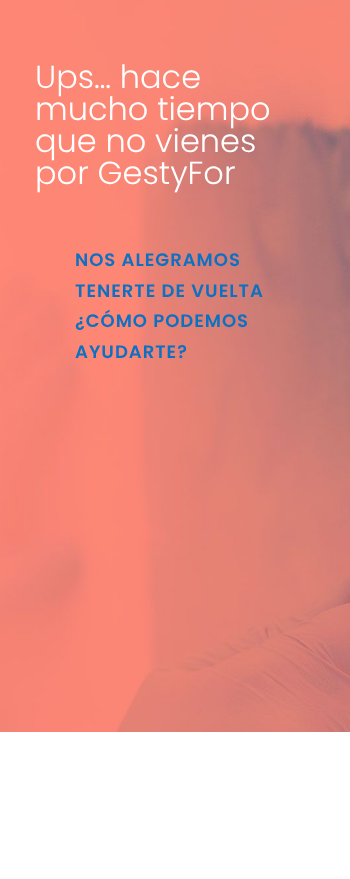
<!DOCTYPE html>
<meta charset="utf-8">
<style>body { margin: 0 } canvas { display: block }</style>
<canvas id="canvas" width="350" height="879"></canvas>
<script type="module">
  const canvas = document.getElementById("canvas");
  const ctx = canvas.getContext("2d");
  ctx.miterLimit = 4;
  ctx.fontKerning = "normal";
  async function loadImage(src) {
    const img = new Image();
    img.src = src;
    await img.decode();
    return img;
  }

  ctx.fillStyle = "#ffffff";
  ctx.fillRect(0, 0, 350, 879);
  ctx.drawImage(await loadImage("img1.png"), 0, 0, 350, 732);
  ctx.font = "300 32px Poppins";
  ctx.fillText("Ups… hace", 35, 88);
  ctx.fillText("mucho tiempo", 35, 120);
  ctx.fillText("que no vienes", 35, 152);
  ctx.fillText("por GestyFor", 35, 184);
  ctx.letterSpacing = "1px";
  ctx.font = "600 18px Poppins";
  ctx.fillStyle = "#0c71c3";
  ctx.fillText("NOS ALEGRAMOS", 75, 266);
  ctx.fillText("TENERTE DE VUELTA", 75, 297);
  ctx.fillText("¿CÓMO PODEMOS", 75, 327);
  ctx.fillText("AYUDARTE?", 75, 358);
</script>
